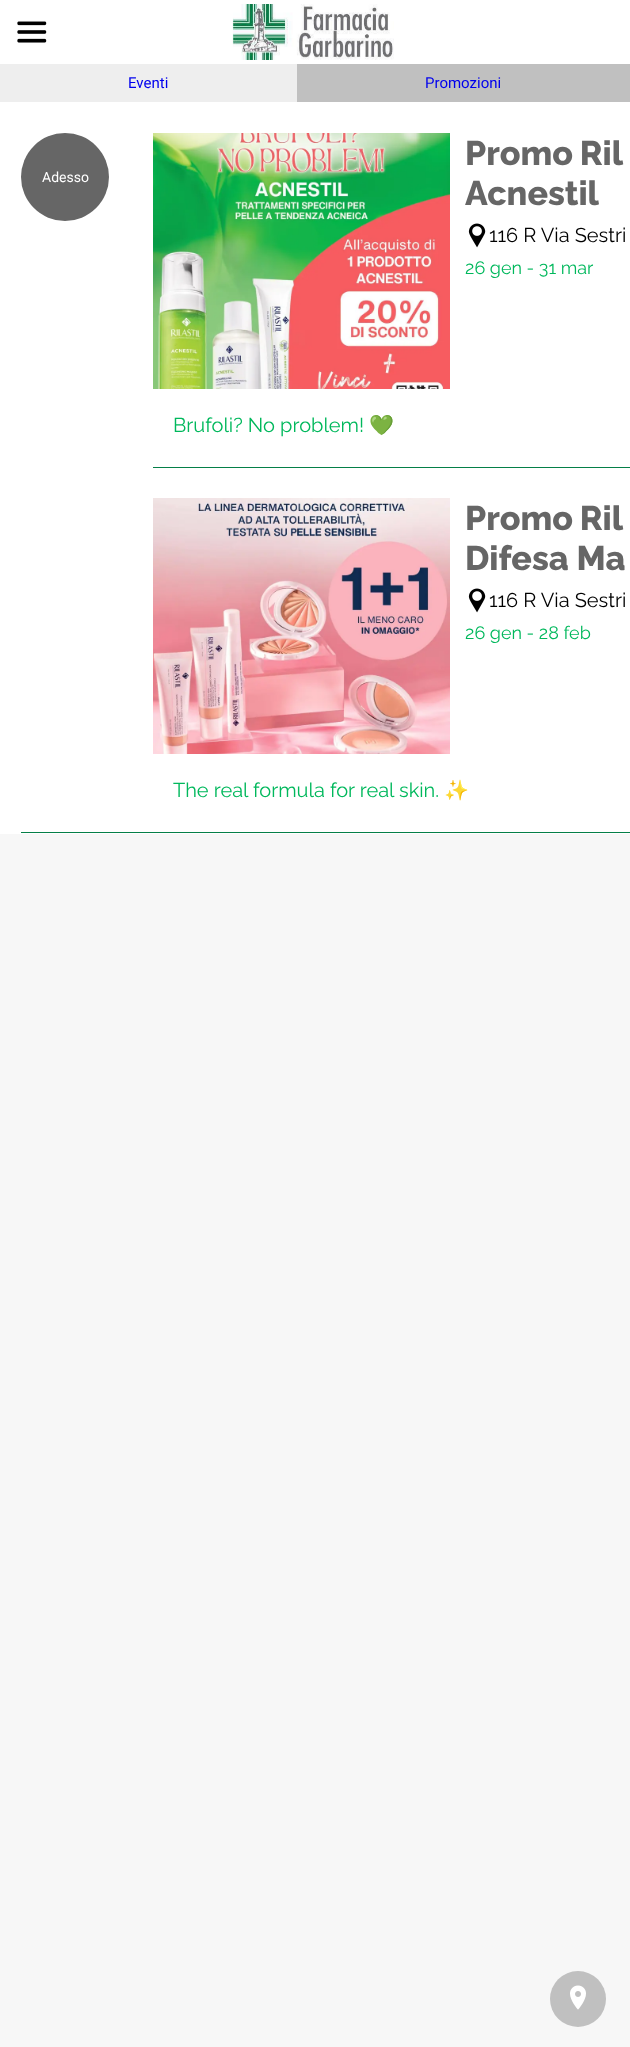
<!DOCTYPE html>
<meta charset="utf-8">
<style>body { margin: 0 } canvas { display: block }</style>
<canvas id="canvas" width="630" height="2047"></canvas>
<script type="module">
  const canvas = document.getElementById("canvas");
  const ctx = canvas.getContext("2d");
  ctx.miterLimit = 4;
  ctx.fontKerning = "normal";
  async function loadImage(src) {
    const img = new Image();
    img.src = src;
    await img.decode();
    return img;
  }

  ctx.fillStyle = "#f7f7f7";
  ctx.fillRect(0, 0, 630, 2047);
  ctx.fillStyle = "#ffffff";
  ctx.fillRect(0, 0, 630, 64);
  ctx.drawImage(await loadImage("img1.png"), 17, 21, 30, 22);
  ctx.drawImage(await loadImage("img2.png"), 232, 4, 162, 56);
  ctx.fillStyle = "#eeeeee";
  ctx.fillRect(0, 64, 297, 38);
  ctx.font = "15px Roboto";
  ctx.fillStyle = "#0000ee";
  ctx.fillText("Eventi", 128, 88);
  ctx.fillStyle = "#c0c0c0";
  ctx.fillRect(297, 64, 333, 38);
  ctx.fillStyle = "#0000ee";
  ctx.fillText("Promozioni", 425, 88);
  ctx.fillStyle = "#ffffff";
  ctx.fillRect(0, 102, 630, 732);
  ctx.fillStyle = "#057f48";
  ctx.fillRect(21, 832, 609, 1);
  ctx.fillStyle = "#666666";
  ctx.beginPath();
  ctx.arc(65, 177, 44, 0, Math.PI * 2);
  ctx.fill();
  ctx.font = "14px Roboto";
  ctx.fillStyle = "#ffffff";
  ctx.fillText("Adesso", 42, 182);
  ctx.fillStyle = "#057f48";
  ctx.fillRect(153, 467, 477, 1);
  ctx.drawImage(await loadImage("img3.png"), 153, 133, 297, 256);
  ctx.wordSpacing = "-1px";
  ctx.font = "800 34px Raleway";
  ctx.fillStyle = "#666666";
  ctx.fillText("Promo Ril", 465, 165);
  ctx.wordSpacing = "0px";
  ctx.fillText("Acnestil", 465, 205);
  ctx.drawImage(await loadImage("img4.png"), 468, 223, 18, 25);
  ctx.font = "20px Raleway";
  ctx.fillStyle = "#000000";
  ctx.fillText("116 R Via Sestri", 489, 242);
  ctx.font = "18px Raleway";
  ctx.fillStyle = "#00b85c";
  ctx.fillText("26 gen - 31 mar", 465, 274);
  ctx.font = "20px Raleway";
  ctx.fillText("Brufoli? No problem!", 173, 432);
  ctx.font = "20px Noto Color Emoji";
  ctx.fillText("💚", 369, 432);
  ctx.drawImage(await loadImage("img5.png"), 153, 498, 297, 256);
  ctx.wordSpacing = "-1px";
  ctx.font = "800 34px Raleway";
  ctx.fillStyle = "#666666";
  ctx.fillText("Promo Ril", 465, 530);
  ctx.wordSpacing = "0px";
  ctx.fillText("Difesa Ma", 465, 570);
  ctx.drawImage(await loadImage("img4.png"), 468, 588, 18, 25);
  ctx.font = "20px Raleway";
  ctx.fillStyle = "#000000";
  ctx.fillText("116 R Via Sestri", 489, 607);
  ctx.font = "18px Raleway";
  ctx.fillStyle = "#00b85c";
  ctx.fillText("26 gen - 28 feb", 465, 639);
  ctx.font = "20px Raleway";
  ctx.fillText("The real formula for real skin.", 173, 797);
  ctx.font = "20px Noto Color Emoji";
  ctx.fillText("✨", 444, 797);
  ctx.fillStyle = "#c0c0c0";
  ctx.beginPath();
  ctx.arc(578, 1999, 28, 0, Math.PI * 2);
  ctx.fill();
  ctx.drawImage(await loadImage("img6.png"), 570, 1985, 16, 25);
</script>
